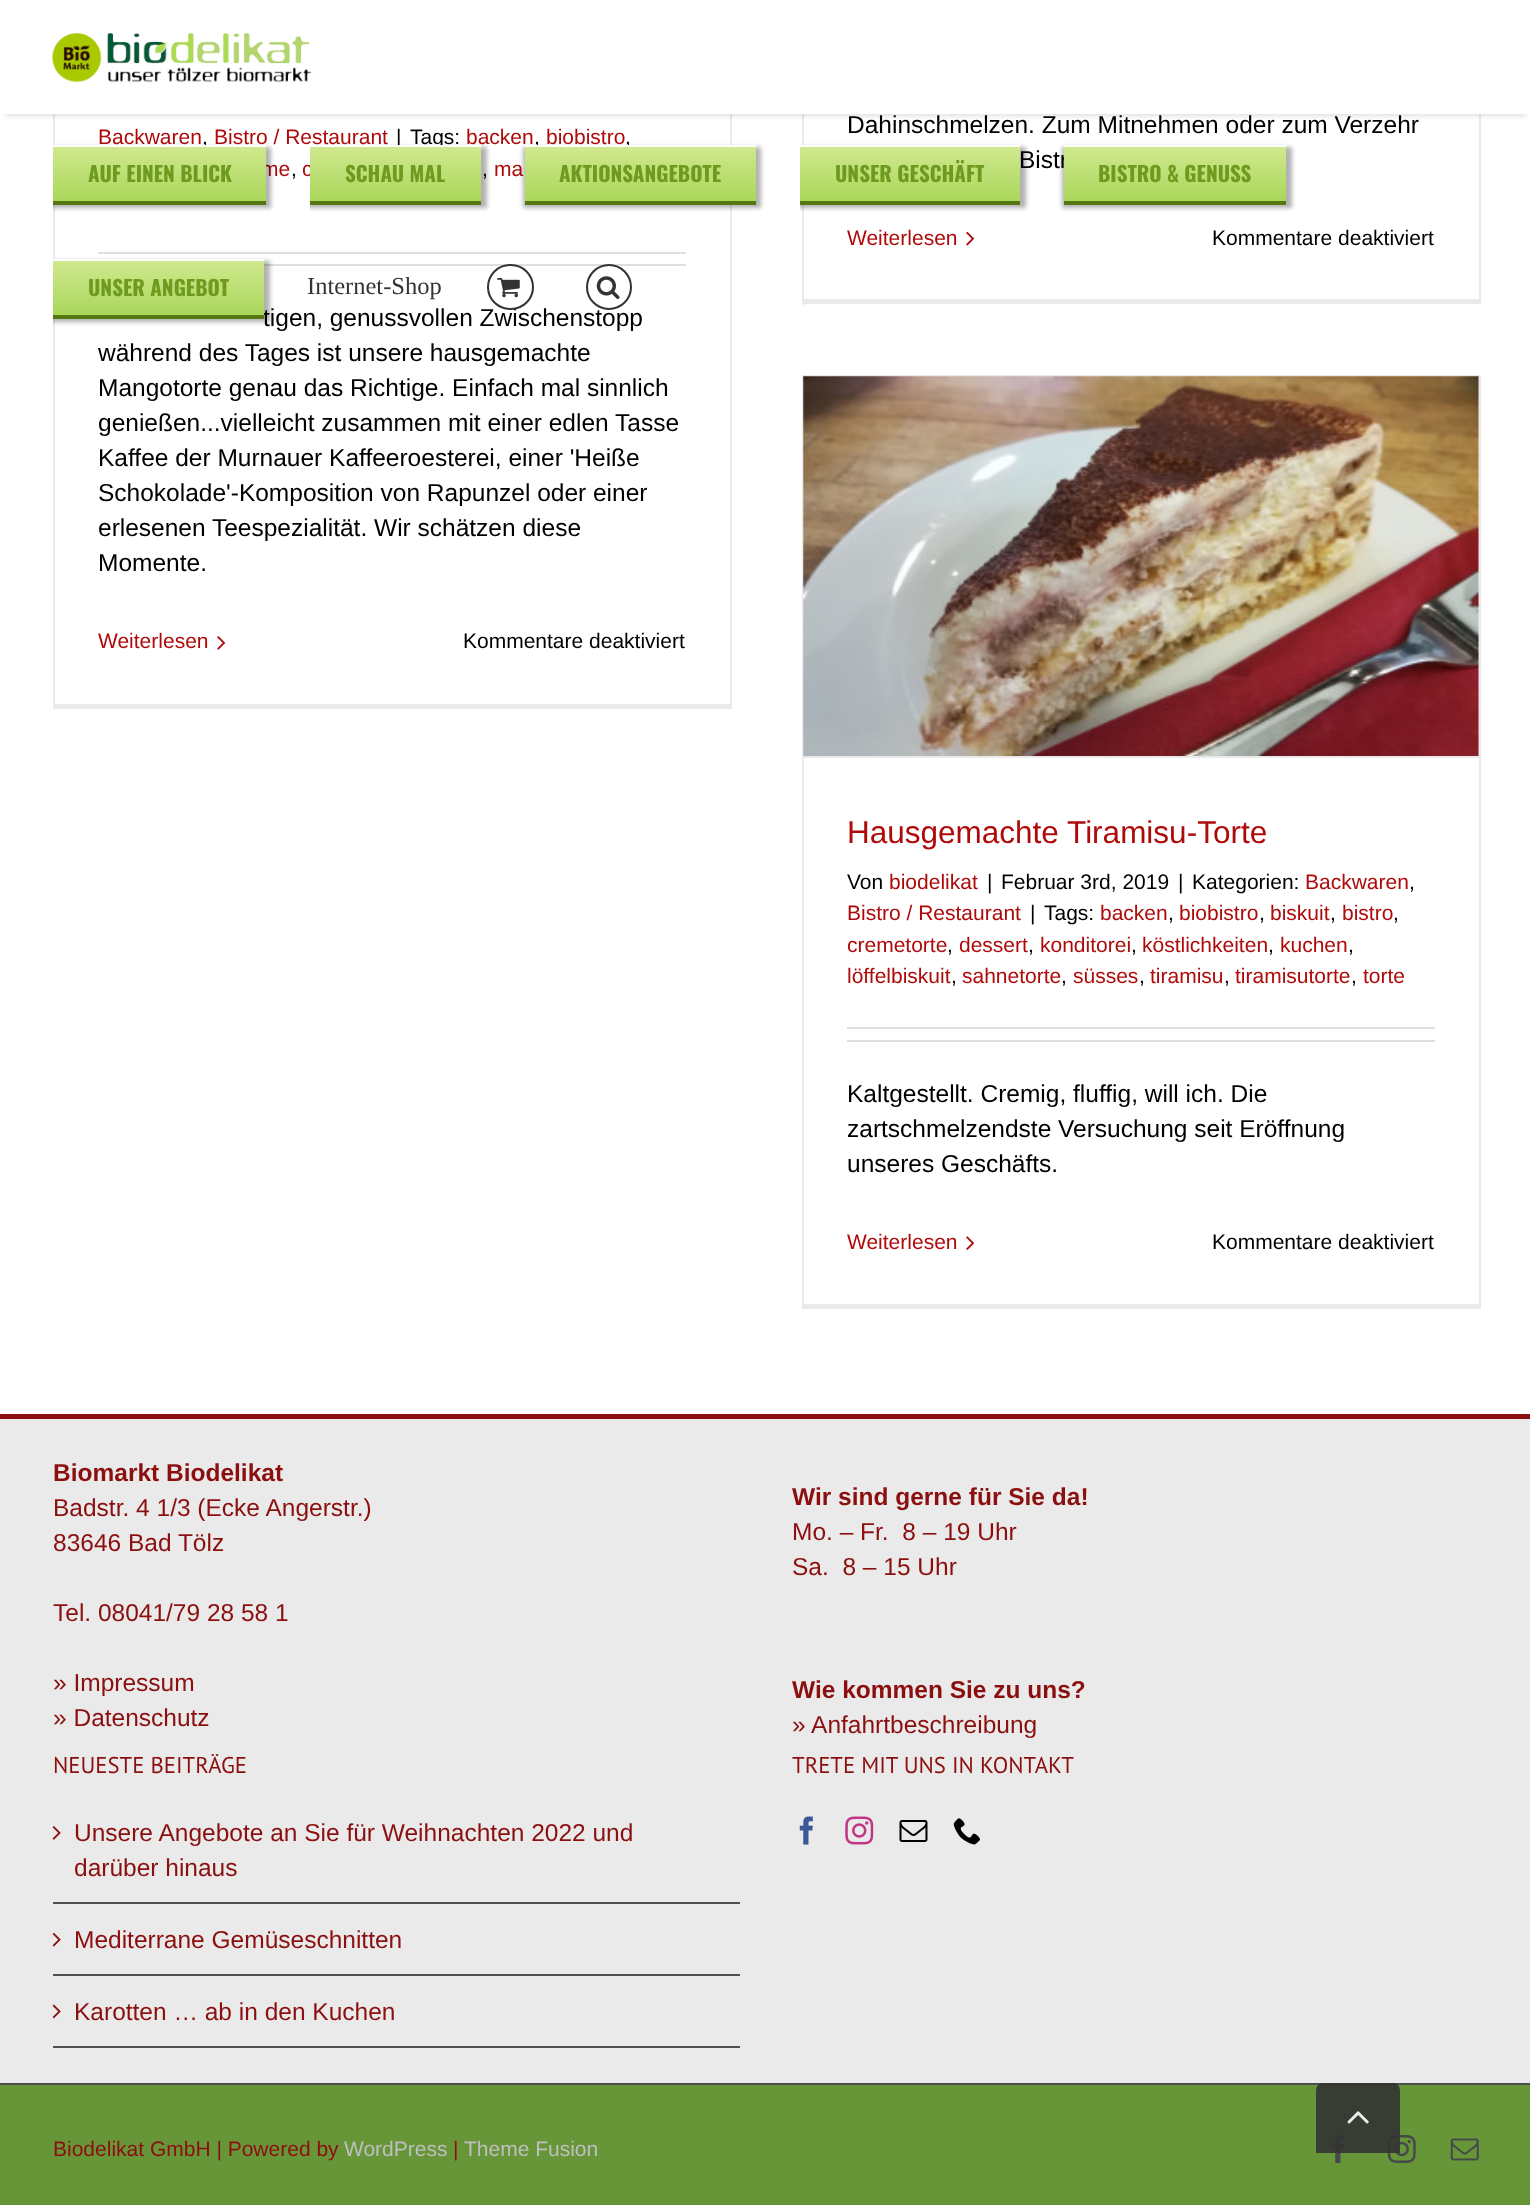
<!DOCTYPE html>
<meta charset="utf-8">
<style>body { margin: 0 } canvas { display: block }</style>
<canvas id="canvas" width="1530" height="2205"></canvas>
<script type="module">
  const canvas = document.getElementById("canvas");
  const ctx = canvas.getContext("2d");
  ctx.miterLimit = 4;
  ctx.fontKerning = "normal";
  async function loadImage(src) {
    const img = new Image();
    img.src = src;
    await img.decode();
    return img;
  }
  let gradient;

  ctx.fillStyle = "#ffffff";
  ctx.fillRect(0, 0, 1530, 2205);
  ctx.fillStyle = "#ebeaea";
  ctx.fillRect(730, 114, 2, 595);
  ctx.fillRect(53, 704, 679, 5);
  ctx.fillRect(53, 114, 2, 595);
  ctx.font = "21px Liberation Sans";
  ctx.fillStyle = "#af0a0a";
  ctx.fillText("Backwaren", 98, 144);
  ctx.fillStyle = "#000000";
  ctx.fillText(",", 202, 144);
  ctx.fillStyle = "#af0a0a";
  ctx.fillText("Bistro / Restaurant", 214, 144);
  ctx.fillStyle = "#000000";
  ctx.fillText("|", 396, 144);
  ctx.fillText("Tags:", 410, 144);
  ctx.fillStyle = "#af0a0a";
  ctx.fillText("backen", 466, 144);
  ctx.fillStyle = "#000000";
  ctx.fillText(",", 534, 144);
  ctx.fillStyle = "#af0a0a";
  ctx.fillText("biobistro", 546, 144);
  ctx.fillStyle = "#000000";
  ctx.fillText(",", 625, 144);
  ctx.fillStyle = "#af0a0a";
  ctx.fillText("me", 261, 176);
  ctx.fillStyle = "#000000";
  ctx.fillText(",", 291, 176);
  ctx.fillStyle = "#af0a0a";
  ctx.fillText("c", 302, 176);
  ctx.fillStyle = "#000000";
  ctx.fillText(",", 482, 176);
  ctx.fillStyle = "#af0a0a";
  ctx.fillText("ma", 494, 176);
  ctx.fillStyle = "#e0dede";
  ctx.fillRect(98, 252, 588, 2);
  ctx.fillRect(264, 264, 422, 2);
  ctx.font = "24.5px Liberation Sans";
  ctx.fillStyle = "#000000";
  ctx.fillText("tigen, genussvollen Zwischenstopp", 263, 326);
  ctx.fillText("während des Tages ist unsere hausgemachte", 98, 361);
  ctx.fillText("Mangotorte genau das Richtige. Einfach mal sinnlich", 98, 396);
  ctx.fillText("genießen...vielleicht zusammen mit einer edlen Tasse", 98, 431);
  ctx.fillText("Kaffee der Murnauer Kaffeeroesterei, einer 'Heiße", 98, 466);
  ctx.fillText("Schokolade'-Komposition von Rapunzel oder einer", 98, 501);
  ctx.fillText("erlesenen Teespezialität. Wir schätzen diese", 98, 536);
  ctx.fillText("Momente.", 98, 571);
  ctx.font = "21px Liberation Sans";
  ctx.fillStyle = "#af0a0a";
  ctx.fillText("Weiterlesen", 98, 648);
  ctx.drawImage(await loadImage("img1.png"), 217, 636, 9, 14);
  ctx.fillStyle = "#000000";
  ctx.fillText("Kommentare deaktiviert", 463, 648);
  ctx.fillStyle = "#ebeaea";
  ctx.fillRect(1479, 114, 2, 191);
  ctx.fillRect(802, 299, 679, 5);
  ctx.fillRect(802, 114, 2, 191);
  ctx.font = "24.5px Liberation Sans";
  ctx.fillStyle = "#000000";
  ctx.fillText("Dahinschmelzen. Zum Mitnehmen oder zum Verzehr", 847, 133);
  ctx.fillText("Bistr", 1019, 168);
  ctx.font = "21px Liberation Sans";
  ctx.fillStyle = "#af0a0a";
  ctx.fillText("Weiterlesen", 847, 245);
  ctx.drawImage(await loadImage("img2.png"), 966, 231, 9, 15);
  ctx.fillStyle = "#000000";
  ctx.fillText("Kommentare deaktiviert", 1212, 245);
  ctx.fillStyle = "#ebeaea";
  ctx.fillRect(802, 375, 679, 2);
  ctx.fillRect(1479, 375, 2, 934);
  ctx.fillRect(802, 1304, 679, 5);
  ctx.fillRect(802, 375, 2, 934);
  ctx.fillRect(803, 756, 676, 2);
  ctx.drawImage(await loadImage("img3.png"), 803, 376, 676, 380);
  ctx.font = "31.5px Liberation Sans";
  ctx.fillStyle = "#af0a0a";
  ctx.fillText("Hausgemachte Tiramisu-Torte", 847, 843);
  ctx.font = "21px Liberation Sans";
  ctx.fillStyle = "#000000";
  ctx.fillText("Von", 847, 889);
  ctx.fillStyle = "#af0a0a";
  ctx.fillText("biodelikat", 889, 889);
  ctx.fillStyle = "#000000";
  ctx.fillText("|", 987, 889);
  ctx.fillText("Februar 3rd, 2019", 1001, 889);
  ctx.fillText("|", 1178, 889);
  ctx.fillText("Kategorien:", 1192, 889);
  ctx.fillStyle = "#af0a0a";
  ctx.fillText("Backwaren", 1305, 889);
  ctx.fillStyle = "#000000";
  ctx.fillText(",", 1409, 889);
  ctx.fillStyle = "#af0a0a";
  ctx.fillText("Bistro / Restaurant", 847, 920);
  ctx.fillStyle = "#000000";
  ctx.fillText("|", 1030, 920);
  ctx.fillText("Tags:", 1044, 920);
  ctx.fillStyle = "#af0a0a";
  ctx.fillText("backen", 1100, 920);
  ctx.fillStyle = "#000000";
  ctx.fillText(",", 1168, 920);
  ctx.fillStyle = "#af0a0a";
  ctx.fillText("biobistro", 1179, 920);
  ctx.fillStyle = "#000000";
  ctx.fillText(",", 1259, 920);
  ctx.fillStyle = "#af0a0a";
  ctx.fillText("biskuit", 1270, 920);
  ctx.fillStyle = "#000000";
  ctx.fillText(",", 1330, 920);
  ctx.fillStyle = "#af0a0a";
  ctx.fillText("bistro", 1342, 920);
  ctx.fillStyle = "#000000";
  ctx.fillText(",", 1393, 920);
  ctx.fillStyle = "#af0a0a";
  ctx.fillText("cremetorte", 847, 952);
  ctx.fillStyle = "#000000";
  ctx.fillText(",", 947, 952);
  ctx.fillStyle = "#af0a0a";
  ctx.fillText("dessert", 959, 952);
  ctx.fillStyle = "#000000";
  ctx.fillText(",", 1028, 952);
  ctx.fillStyle = "#af0a0a";
  ctx.fillText("konditorei", 1040, 952);
  ctx.fillStyle = "#000000";
  ctx.fillText(",", 1131, 952);
  ctx.fillStyle = "#af0a0a";
  ctx.fillText("köstlichkeiten", 1142, 952);
  ctx.fillStyle = "#000000";
  ctx.fillText(",", 1268, 952);
  ctx.fillStyle = "#af0a0a";
  ctx.fillText("kuchen", 1280, 952);
  ctx.fillStyle = "#000000";
  ctx.fillText(",", 1348, 952);
  ctx.fillStyle = "#af0a0a";
  ctx.fillText("löffelbiskuit", 847, 983);
  ctx.fillStyle = "#000000";
  ctx.fillText(",", 951, 983);
  ctx.fillStyle = "#af0a0a";
  ctx.fillText("sahnetorte", 962, 983);
  ctx.fillStyle = "#000000";
  ctx.fillText(",", 1061, 983);
  ctx.fillStyle = "#af0a0a";
  ctx.fillText("süsses", 1073, 983);
  ctx.fillStyle = "#000000";
  ctx.fillText(",", 1139, 983);
  ctx.fillStyle = "#af0a0a";
  ctx.fillText("tiramisu", 1150, 983);
  ctx.fillStyle = "#000000";
  ctx.fillText(",", 1224, 983);
  ctx.fillStyle = "#af0a0a";
  ctx.fillText("tiramisutorte", 1235, 983);
  ctx.fillStyle = "#000000";
  ctx.fillText(",", 1351, 983);
  ctx.fillStyle = "#af0a0a";
  ctx.fillText("torte", 1363, 983);
  ctx.fillStyle = "#e0dede";
  ctx.fillRect(847, 1027, 588, 2);
  ctx.fillRect(847, 1040, 588, 2);
  ctx.font = "24.5px Liberation Sans";
  ctx.fillStyle = "#000000";
  ctx.fillText("Kaltgestellt. Cremig, fluffig, will ich. Die", 847, 1102);
  ctx.fillText("zartschmelzendste Versuchung seit Eröffnung", 847, 1137);
  ctx.fillText("unseres Geschäfts.", 847, 1172);
  ctx.font = "21px Liberation Sans";
  ctx.fillStyle = "#af0a0a";
  ctx.fillText("Weiterlesen", 847, 1249);
  ctx.drawImage(await loadImage("img4.png"), 966, 1236, 9, 14);
  ctx.fillStyle = "#000000";
  ctx.fillText("Kommentare deaktiviert", 1212, 1249);
  ctx.fillStyle = "rgba(0, 0, 0, 0.12)";
  ctx.filter = "blur(2.5px)";
  ctx.beginPath();
  ctx.rect(5, 12, 1521, 104);
  ctx.fill();
  ctx.filter = "none";
  ctx.fillStyle = "#ffffff";
  ctx.fillRect(2, 9, 1527, 105);
  ctx.drawImage(await loadImage("img5.png"), 52, 33, 260, 50);
  ctx.save();
  ctx.beginPath();
  ctx.rect(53, 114, 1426, 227);
  ctx.clip();
  ctx.fillStyle = "rgba(0, 0, 0, 0.3)";
  ctx.filter = "blur(2px)";
  ctx.beginPath();
  ctx.rect(51, 147, 220, 61);
  ctx.fill();
  ctx.filter = "none";
  ctx.restore();
  ctx.fillStyle = "#54770f";
  ctx.fillRect(53, 201, 213, 4);
  gradient = ctx.createLinearGradient(159, 145, 159, 201);
  gradient.addColorStop(0, "#d1e990");
  gradient.addColorStop(1, "#aad75b");
  ctx.fillStyle = gradient;
  ctx.fillRect(53, 147, 213, 54);
  ctx.fillStyle = "#ffffff";
  ctx.fillRect(53, 145, 213, 2);
  ctx.font = "bold 21px Oswald";
  ctx.fillStyle = "#6e9a1f";
  ctx.fillText("AUF EINEN BLICK", 88, 182);
  ctx.save();
  ctx.beginPath();
  ctx.rect(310, 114, 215, 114);
  ctx.clip();
  ctx.fillStyle = "rgba(0, 0, 0, 0.3)";
  ctx.filter = "blur(2px)";
  ctx.beginPath();
  ctx.rect(308, 147, 179, 61);
  ctx.fill();
  ctx.filter = "none";
  ctx.restore();
  ctx.fillStyle = "#54770f";
  ctx.fillRect(310, 201, 171, 4);
  gradient = ctx.createLinearGradient(396, 145, 396, 201);
  gradient.addColorStop(0, "#d1e990");
  gradient.addColorStop(1, "#aad75b");
  ctx.fillStyle = gradient;
  ctx.fillRect(310, 147, 171, 54);
  ctx.fillStyle = "#ffffff";
  ctx.fillRect(310, 145, 171, 2);
  ctx.fillStyle = "#6e9a1f";
  ctx.fillText("SCHAU MAL", 345, 182);
  ctx.fillStyle = "rgba(0, 0, 0, 0.3)";
  ctx.filter = "blur(2px)";
  ctx.beginPath();
  ctx.rect(523, 147, 238, 61);
  ctx.fill();
  ctx.filter = "none";
  ctx.fillStyle = "#54770f";
  ctx.fillRect(525, 201, 231, 4);
  gradient = ctx.createLinearGradient(641, 145, 641, 201);
  gradient.addColorStop(0, "#d1e990");
  gradient.addColorStop(1, "#aad75b");
  ctx.fillStyle = gradient;
  ctx.fillRect(525, 147, 231, 54);
  ctx.fillStyle = "#ffffff";
  ctx.fillRect(525, 145, 231, 2);
  ctx.fillStyle = "#6e9a1f";
  ctx.fillText("AKTIONSANGEBOTE", 559, 182);
  ctx.save();
  ctx.beginPath();
  ctx.rect(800, 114, 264, 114);
  ctx.clip();
  ctx.fillStyle = "rgba(0, 0, 0, 0.3)";
  ctx.filter = "blur(2px)";
  ctx.beginPath();
  ctx.rect(798, 147, 228, 61);
  ctx.fill();
  ctx.filter = "none";
  ctx.restore();
  ctx.fillStyle = "#54770f";
  ctx.fillRect(800, 201, 220, 4);
  gradient = ctx.createLinearGradient(910, 145, 910, 201);
  gradient.addColorStop(0, "#d1e990");
  gradient.addColorStop(1, "#aad75b");
  ctx.fillStyle = gradient;
  ctx.fillRect(800, 147, 220, 54);
  ctx.fillStyle = "#ffffff";
  ctx.fillRect(800, 145, 220, 2);
  ctx.fillStyle = "#6e9a1f";
  ctx.fillText("UNSER GESCHÄFT", 835, 182);
  ctx.fillStyle = "rgba(0, 0, 0, 0.3)";
  ctx.filter = "blur(2px)";
  ctx.beginPath();
  ctx.rect(1062, 147, 230, 61);
  ctx.fill();
  ctx.filter = "none";
  ctx.fillStyle = "#54770f";
  ctx.fillRect(1064, 201, 222, 4);
  gradient = ctx.createLinearGradient(1175, 145, 1175, 201);
  gradient.addColorStop(0, "#d1e990");
  gradient.addColorStop(1, "#aad75b");
  ctx.fillStyle = gradient;
  ctx.fillRect(1064, 147, 222, 54);
  ctx.fillStyle = "#ffffff";
  ctx.fillRect(1064, 145, 222, 2);
  ctx.fillStyle = "#6e9a1f";
  ctx.fillText("BISTRO & GENUSS", 1098, 182);
  ctx.save();
  ctx.beginPath();
  ctx.rect(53, 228, 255, 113);
  ctx.clip();
  ctx.fillStyle = "rgba(0, 0, 0, 0.3)";
  ctx.filter = "blur(2px)";
  ctx.beginPath();
  ctx.rect(51, 261, 219, 61);
  ctx.fill();
  ctx.filter = "none";
  ctx.restore();
  ctx.fillStyle = "#54770f";
  ctx.fillRect(53, 315, 211, 4);
  gradient = ctx.createLinearGradient(158, 259, 158, 315);
  gradient.addColorStop(0, "#d1e990");
  gradient.addColorStop(1, "#aad75b");
  ctx.fillStyle = gradient;
  ctx.fillRect(53, 261, 211, 54);
  ctx.fillStyle = "#ffffff";
  ctx.fillRect(53, 259, 211, 2);
  ctx.fillStyle = "#6e9a1f";
  ctx.fillText("UNSER ANGEBOT", 88, 296);
  ctx.font = "24.5px Liberation Serif";
  ctx.fillStyle = "#333333";
  ctx.fillText("Internet-Shop", 307, 294);
  ctx.beginPath();
  ctx.roundRect(488, 265, 45, 44, 22);
  ctx.strokeStyle = "#333333";
  ctx.lineWidth = 2;
  ctx.stroke();
  ctx.drawImage(await loadImage("img6.png"), 497, 278, 23, 20);
  ctx.beginPath();
  ctx.arc(609, 287, 22, 0, Math.PI * 2);
  ctx.stroke();
  ctx.drawImage(await loadImage("img7.png"), 596, 276, 24, 23);
  ctx.fillStyle = "#eaeaea";
  ctx.fillRect(0, 1419, 1530, 664);
  ctx.fillStyle = "#8c0f0f";
  ctx.fillRect(0, 1414, 1530, 5);
  ctx.font = "bold 24.5px Liberation Sans";
  ctx.fillText("Biomarkt Biodelikat", 53, 1481);
  ctx.font = "24.5px Liberation Sans";
  ctx.fillText("Badstr. 4 1/3 (Ecke Angerstr.)", 53, 1516);
  ctx.fillText("83646 Bad Tölz", 53, 1551);
  ctx.fillText("Tel. 08041/79 28 58 1", 53, 1621);
  ctx.fillText("» Impressum", 53, 1691);
  ctx.fillText("» Datenschutz", 53, 1726);
  ctx.font = "bold 24.5px Liberation Sans";
  ctx.fillText("Wir sind gerne für Sie da!", 792, 1505);
  ctx.font = "24.5px Liberation Sans";
  ctx.fillText("Mo. – Fr.  8 – 19 Uhr", 792, 1540);
  ctx.fillText("Sa.  8 – 15 Uhr", 792, 1575);
  ctx.font = "bold 24.5px Liberation Sans";
  ctx.fillText("Wie kommen Sie zu uns?", 792, 1698);
  ctx.font = "24.5px Liberation Sans";
  ctx.fillText("» Anfahrtbeschreibung", 792, 1733);
  ctx.font = "22.75px PT Sans";
  ctx.fillText("NEUESTE BEITRÄGE", 53, 1773);
  ctx.fillStyle = "#505152";
  ctx.fillRect(53, 1902, 687, 2);
  ctx.drawImage(await loadImage("img8.png"), 52, 1826, 9, 14);
  ctx.font = "24.5px Liberation Sans";
  ctx.fillStyle = "#8c0f0f";
  ctx.fillText("Unsere Angebote an Sie für Weihnachten 2022 und", 74, 1841);
  ctx.fillText("darüber hinaus", 74, 1876);
  ctx.fillStyle = "#505152";
  ctx.fillRect(53, 1974, 687, 2);
  ctx.drawImage(await loadImage("img9.png"), 52, 1932, 9, 15);
  ctx.fillStyle = "#8c0f0f";
  ctx.fillText("Mediterrane Gemüseschnitten", 74, 1948);
  ctx.fillStyle = "#505152";
  ctx.fillRect(53, 2046, 687, 2);
  ctx.drawImage(await loadImage("img10.png"), 52, 2004, 9, 15);
  ctx.fillStyle = "#8c0f0f";
  ctx.fillText("Karotten … ab in den Kuchen", 74, 2020);
  ctx.font = "22.75px PT Sans";
  ctx.fillText("TRETE MIT UNS IN KONTAKT", 792, 1773);
  ctx.drawImage(await loadImage("img11.png"), 799, 1816, 14, 29);
  ctx.drawImage(await loadImage("img12.png"), 845, 1816, 29, 29);
  ctx.drawImage(await loadImage("img13.png"), 899, 1820, 29, 22);
  ctx.drawImage(await loadImage("img14.png"), 953, 1818, 27, 27);
  ctx.fillStyle = "#679639";
  ctx.fillRect(0, 2085, 1530, 120);
  ctx.fillStyle = "#4b4c4d";
  ctx.fillRect(0, 2083, 1530, 2);
  ctx.font = "21px Liberation Sans";
  ctx.fillStyle = "#8c0f0f";
  ctx.fillText("Biodelikat GmbH | Powered by", 53, 2156);
  ctx.fillStyle = "#bfbfbf";
  ctx.fillText("WordPress", 344, 2156);
  ctx.fillStyle = "#8c0f0f";
  ctx.fillText("|", 453, 2156);
  ctx.fillStyle = "#bfbfbf";
  ctx.fillText("Theme Fusion", 464, 2156);
  ctx.drawImage(await loadImage("img15.png"), 1331, 2135, 14, 28);
  ctx.drawImage(await loadImage("img16.png"), 1387, 2135, 29, 28);
  ctx.drawImage(await loadImage("img17.png"), 1450, 2138, 29, 23);
  ctx.fillStyle = "rgba(51, 51, 51, 0.9)";
  ctx.beginPath();
  ctx.roundRect(1316, 2083, 84, 70, [7, 7, 0, 0]);
  ctx.fill();
  ctx.drawImage(await loadImage("img18.png"), 1347, 2111, 22, 13);
</script>
